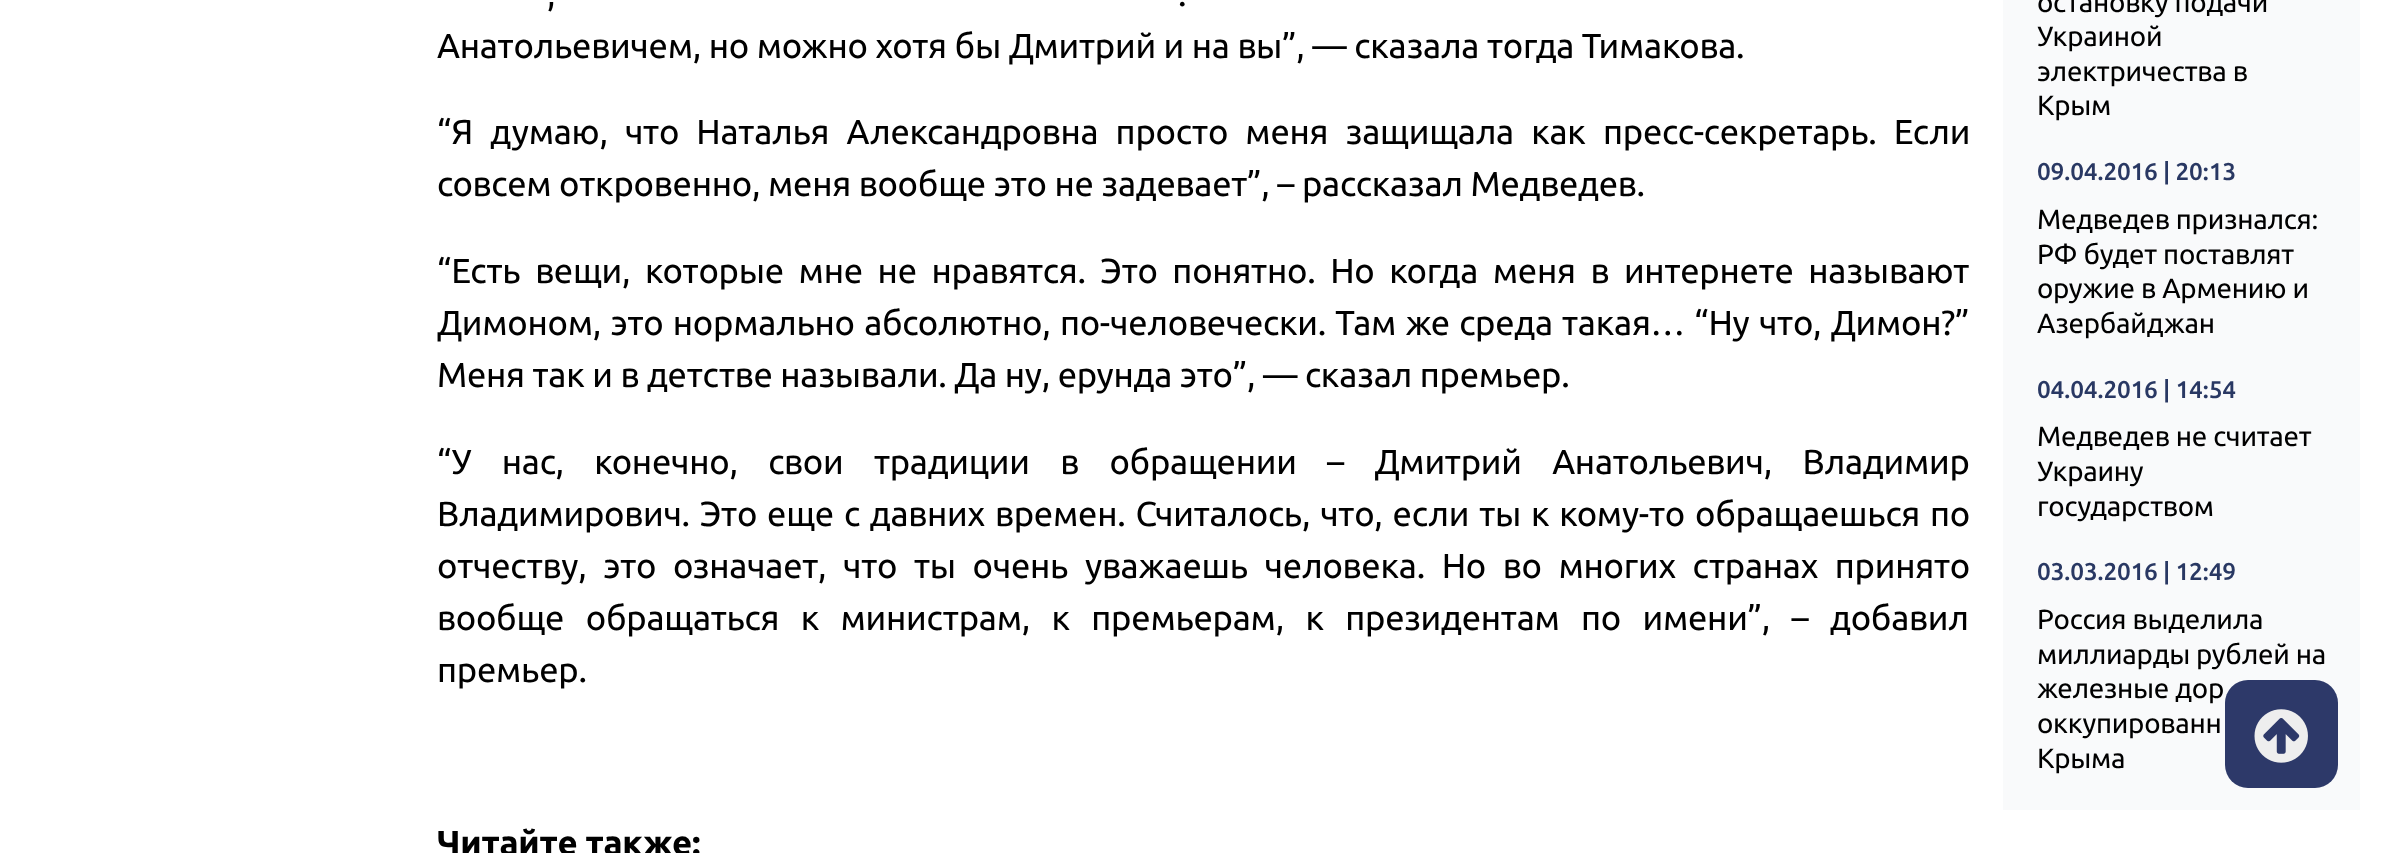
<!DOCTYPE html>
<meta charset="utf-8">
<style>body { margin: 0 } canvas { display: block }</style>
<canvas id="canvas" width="2405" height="853"></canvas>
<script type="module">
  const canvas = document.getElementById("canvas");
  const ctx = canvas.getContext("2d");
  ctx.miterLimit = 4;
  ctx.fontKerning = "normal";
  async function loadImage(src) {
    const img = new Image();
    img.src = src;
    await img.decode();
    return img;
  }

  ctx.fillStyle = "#ffffff";
  ctx.fillRect(0, 0, 2405, 853);
  ctx.letterSpacing = "-0.25px";
  ctx.wordSpacing = "31px";
  ctx.font = "34.65px Ubuntu";
  ctx.fillStyle = "#000000";
  ctx.fillText(",", 547, 6);
  ctx.fillText(".", 1178, 6);
  ctx.wordSpacing = "0px";
  ctx.fillText("Анатольевичем, но можно хотя бы Дмитрий и на вы”, — сказала тогда Тимакова.", 437, 58);
  ctx.wordSpacing = "9.5px";
  ctx.fillText("“Я думаю, что Наталья Александровна просто меня защищала как пресс-секретарь. Если", 437, 144);
  ctx.wordSpacing = "0px";
  ctx.fillText("совсем откровенно, меня вообще это не задевает”, – рассказал Медведев.", 437, 196);
  ctx.wordSpacing = "7px";
  ctx.fillText("“Есть вещи, которые мне не нравятся. Это понятно. Но когда меня в интернете называют", 437, 283);
  ctx.wordSpacing = "1.6px";
  ctx.fillText("Димоном, это нормально абсолютно, по-человечески. Там же среда такая… “Ну что, Димон?”", 437, 335);
  ctx.wordSpacing = "0px";
  ctx.fillText("Меня так и в детстве называли. Да ну, ерунда это”, — сказал премьер.", 437, 387);
  ctx.wordSpacing = "22.75px";
  ctx.fillText("“У нас, конечно, свои традиции в обращении – Дмитрий Анатольевич, Владимир", 437, 474);
  ctx.wordSpacing = "2.25px";
  ctx.fillText("Владимирович. Это еще с давних времен. Считалось, что, если ты к кому-то обращаешься по", 437, 526);
  ctx.wordSpacing = "9px";
  ctx.fillText("отчеству, это означает, что ты очень уважаешь человека. Но во многих странах принято", 437, 578);
  ctx.wordSpacing = "13.75px";
  ctx.fillText("вообще обращаться к министрам, к премьерам, к президентам по имени”, – добавил", 437, 630);
  ctx.wordSpacing = "0px";
  ctx.fillText("премьер.", 437, 682);
  ctx.font = "bold 34.65px Ubuntu";
  ctx.fillText("Читайте также:", 437, 855);
  ctx.fillStyle = "#f9fafb";
  ctx.fillRect(2003, 0, 357, 810);
  ctx.font = "27.75px Ubuntu";
  ctx.fillStyle = "#000000";
  ctx.fillText("остановку подачи", 2037, 12);
  ctx.fillText("Украиной", 2037, 46);
  ctx.fillText("электричества в", 2037, 81);
  ctx.fillText("Крым", 2037, 115);
  ctx.font = "500 24.25px Ubuntu";
  ctx.fillStyle = "#293863";
  ctx.fillText("09.04.2016 | 20:13", 2037, 180);
  ctx.font = "27.75px Ubuntu";
  ctx.fillStyle = "#000000";
  ctx.fillText("Медведев признался:", 2037, 229);
  ctx.fillText("РФ будет поставлят", 2037, 264);
  ctx.fillText("оружие в Армению и", 2037, 298);
  ctx.fillText("Азербайджан", 2037, 333);
  ctx.font = "500 24.25px Ubuntu";
  ctx.fillStyle = "#293863";
  ctx.fillText("04.04.2016 | 14:54", 2037, 398);
  ctx.font = "27.75px Ubuntu";
  ctx.fillStyle = "#000000";
  ctx.fillText("Медведев не считает", 2037, 446);
  ctx.fillText("Украину", 2037, 481);
  ctx.fillText("государством", 2037, 516);
  ctx.font = "500 24.25px Ubuntu";
  ctx.fillStyle = "#293863";
  ctx.fillText("03.03.2016 | 12:49", 2037, 580);
  ctx.font = "27.75px Ubuntu";
  ctx.fillStyle = "#000000";
  ctx.fillText("Россия выделила", 2037, 629);
  ctx.fillText("миллиарды рублей на", 2037, 664);
  ctx.fillText("железные дор", 2037, 698);
  ctx.fillText("оккупированн", 2037, 733);
  ctx.fillText("Крыма", 2037, 768);
  ctx.fillStyle = "#2d3969";
  ctx.beginPath();
  ctx.roundRect(2225, 680, 113, 108, 23);
  ctx.fill();
  ctx.drawImage(await loadImage("img1.png"), 2254, 709, 54, 54);
</script>
